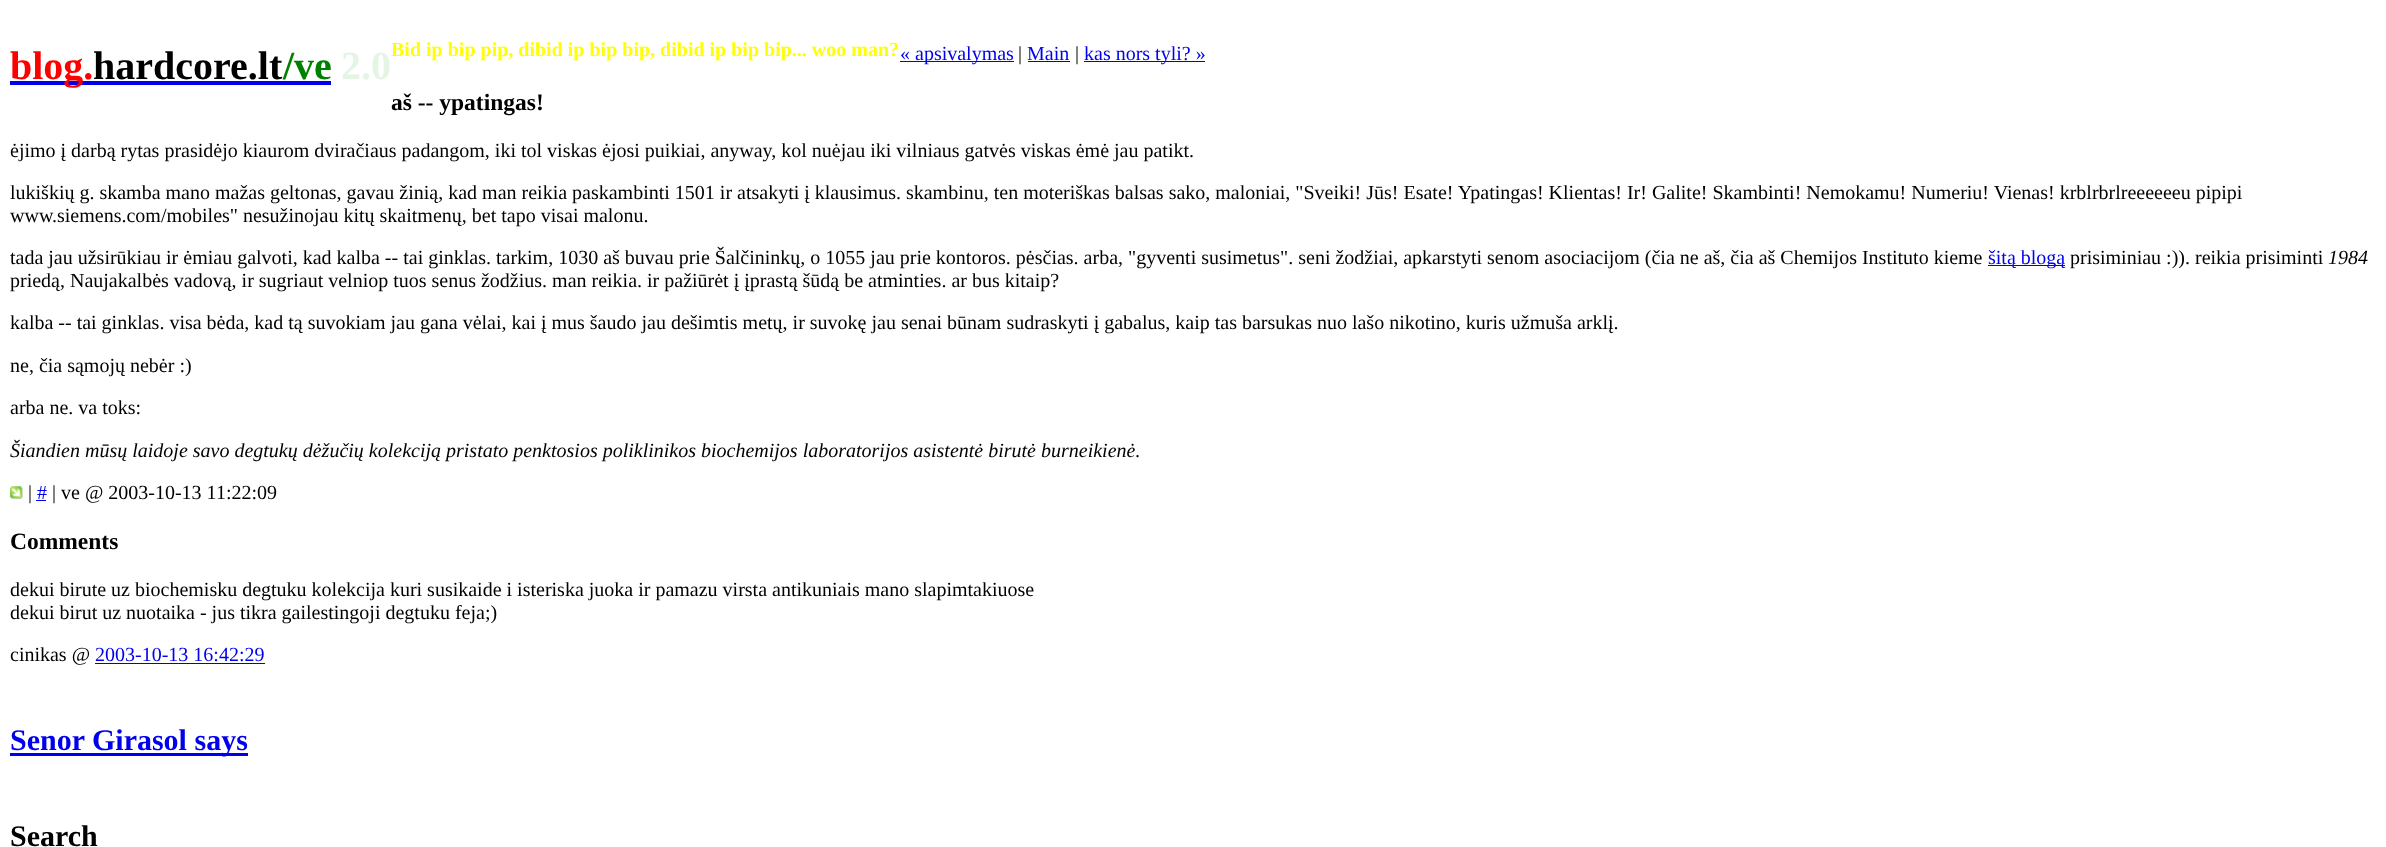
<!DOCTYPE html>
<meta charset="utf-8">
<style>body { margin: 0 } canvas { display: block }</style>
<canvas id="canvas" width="2386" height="847"></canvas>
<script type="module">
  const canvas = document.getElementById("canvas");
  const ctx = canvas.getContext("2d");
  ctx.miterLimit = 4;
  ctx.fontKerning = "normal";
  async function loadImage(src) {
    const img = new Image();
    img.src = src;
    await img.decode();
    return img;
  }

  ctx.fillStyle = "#ffffff";
  ctx.fillRect(0, 0, 2386, 847);
  ctx.fillStyle = "#0000ee";
  ctx.fillRect(10, 81, 321, 4);
  ctx.font = "bold 40px Liberation Serif";
  ctx.fillStyle = "#ff0000";
  ctx.fillText("blog.", 10, 79);
  ctx.fillStyle = "#000000";
  ctx.fillText("hardcore.lt", 93, 79);
  ctx.fillStyle = "#008000";
  ctx.fillText("/ve", 283, 79);
  ctx.fillStyle = "#e5f5e5";
  ctx.fillText("2.0", 341, 79);
  ctx.font = "bold 20px Liberation Serif";
  ctx.fillStyle = "#ffff00";
  ctx.fillText("Bid ip bip pip, dibid ip bip bip, dibid ip bip bip... woo man?", 391, 56);
  ctx.fillStyle = "#0000ee";
  ctx.fillRect(900, 61, 114, 1);
  ctx.font = "20px Liberation Serif";
  ctx.fillText("« apsivalymas", 900, 60);
  ctx.fillStyle = "#000000";
  ctx.fillText("|", 1018, 60);
  ctx.fillStyle = "#0000ee";
  ctx.fillText("Main", 1027, 60);
  ctx.fillRect(1028, 61, 42, 1);
  ctx.fillStyle = "#000000";
  ctx.fillText("|", 1075, 60);
  ctx.fillStyle = "#0000ee";
  ctx.fillRect(1084, 61, 121, 1);
  ctx.fillText("kas nors tyli? »", 1084, 60);
  ctx.font = "bold 23.5px Liberation Serif";
  ctx.fillStyle = "#000000";
  ctx.fillText("aš -- ypatingas!", 391, 110);
  ctx.font = "20px Liberation Serif";
  ctx.fillText("ėjimo į darbą rytas prasidėjo kiaurom dviračiaus padangom, iki tol viskas ėjosi puikiai, anyway, kol nuėjau iki vilniaus gatvės viskas ėmė jau patikt.", 10, 157);
  ctx.fillText("lukiškių g. skamba mano mažas geltonas, gavau žinią, kad man reikia paskambinti 1501 ir atsakyti į klausimus. skambinu, ten moteriškas balsas sako, maloniai, \"Sveiki! Jūs! Esate! Ypatingas! Klientas! Ir! Galite! Skambinti! Nemokamu! Numeriu! Vienas! krblrbrlreeeeeeu pipipi", 10, 199);
  ctx.fillText("www.siemens.com/mobiles\" nesužinojau kitų skaitmenų, bet tapo visai malonu.", 10, 222);
  ctx.fillText("tada jau užsirūkiau ir ėmiau galvoti, kad kalba -- tai ginklas. tarkim, 1030 aš buvau prie Šalčininkų, o 1055 jau prie kontoros. pėsčias. arba, \"gyventi susimetus\". seni žodžiai, apkarstyti senom asociacijom (čia ne aš, čia aš Chemijos Instituto kieme", 10, 264);
  ctx.fillStyle = "#0000ee";
  ctx.fillRect(1988, 265, 77, 1);
  ctx.fillText("šitą blogą", 1988, 264);
  ctx.fillStyle = "#000000";
  ctx.fillText("prisiminiau :)). reikia prisiminti", 2070, 264);
  ctx.font = "italic 20px Liberation Serif";
  ctx.fillText("1984", 2328, 264);
  ctx.font = "20px Liberation Serif";
  ctx.fillText("priedą, Naujakalbės vadovą, ir sugriaut velniop tuos senus žodžius. man reikia. ir pažiūrėt į įprastą šūdą be atminties. ar bus kitaip?", 10, 287);
  ctx.fillText("kalba -- tai ginklas. visa bėda, kad tą suvokiam jau gana vėlai, kai į mus šaudo jau dešimtis metų, ir suvokę jau senai būnam sudraskyti į gabalus, kaip tas barsukas nuo lašo nikotino, kuris užmuša arklį.", 10, 329);
  ctx.fillText("ne, čia sąmojų nebėr :)", 10, 372);
  ctx.fillText("arba ne. va toks:", 10, 414);
  ctx.font = "italic 20px Liberation Serif";
  ctx.fillText("Šiandien mūsų laidoje savo degtukų dėžučių kolekciją pristato penktosios poliklinikos biochemijos laboratorijos asistentė birutė burneikienė.", 10, 457);
  ctx.drawImage(await loadImage("img1.png"), 10, 486, 13, 13);
  ctx.font = "20px Liberation Serif";
  ctx.fillText("|", 28, 499);
  ctx.fillStyle = "#0000ee";
  ctx.fillText("#", 37, 499);
  ctx.fillRect(36, 500, 10, 1);
  ctx.fillStyle = "#000000";
  ctx.fillText("| ve @ 2003-10-13 11:22:09", 52, 499);
  ctx.font = "bold 23.5px Liberation Serif";
  ctx.fillText("Comments", 10, 549);
  ctx.font = "20px Liberation Serif";
  ctx.fillText("dekui birute uz biochemisku degtuku kolekcija kuri susikaide i isteriska juoka ir pamazu virsta antikuniais mano slapimtakiuose", 10, 596);
  ctx.fillText("dekui birut uz nuotaika - jus tikra gailestingoji degtuku feja;)", 10, 619);
  ctx.fillText("cinikas @", 10, 661);
  ctx.fillStyle = "#0000ee";
  ctx.fillText("2003-10-13 16:42:29", 95, 661);
  ctx.fillRect(95, 663, 170, 1);
  ctx.fillRect(10, 753, 238, 3);
  ctx.font = "bold 30px Liberation Serif";
  ctx.fillText("Senor Girasol says", 10, 750);
  ctx.fillStyle = "#000000";
  ctx.fillText("Search", 10, 846);
</script>
